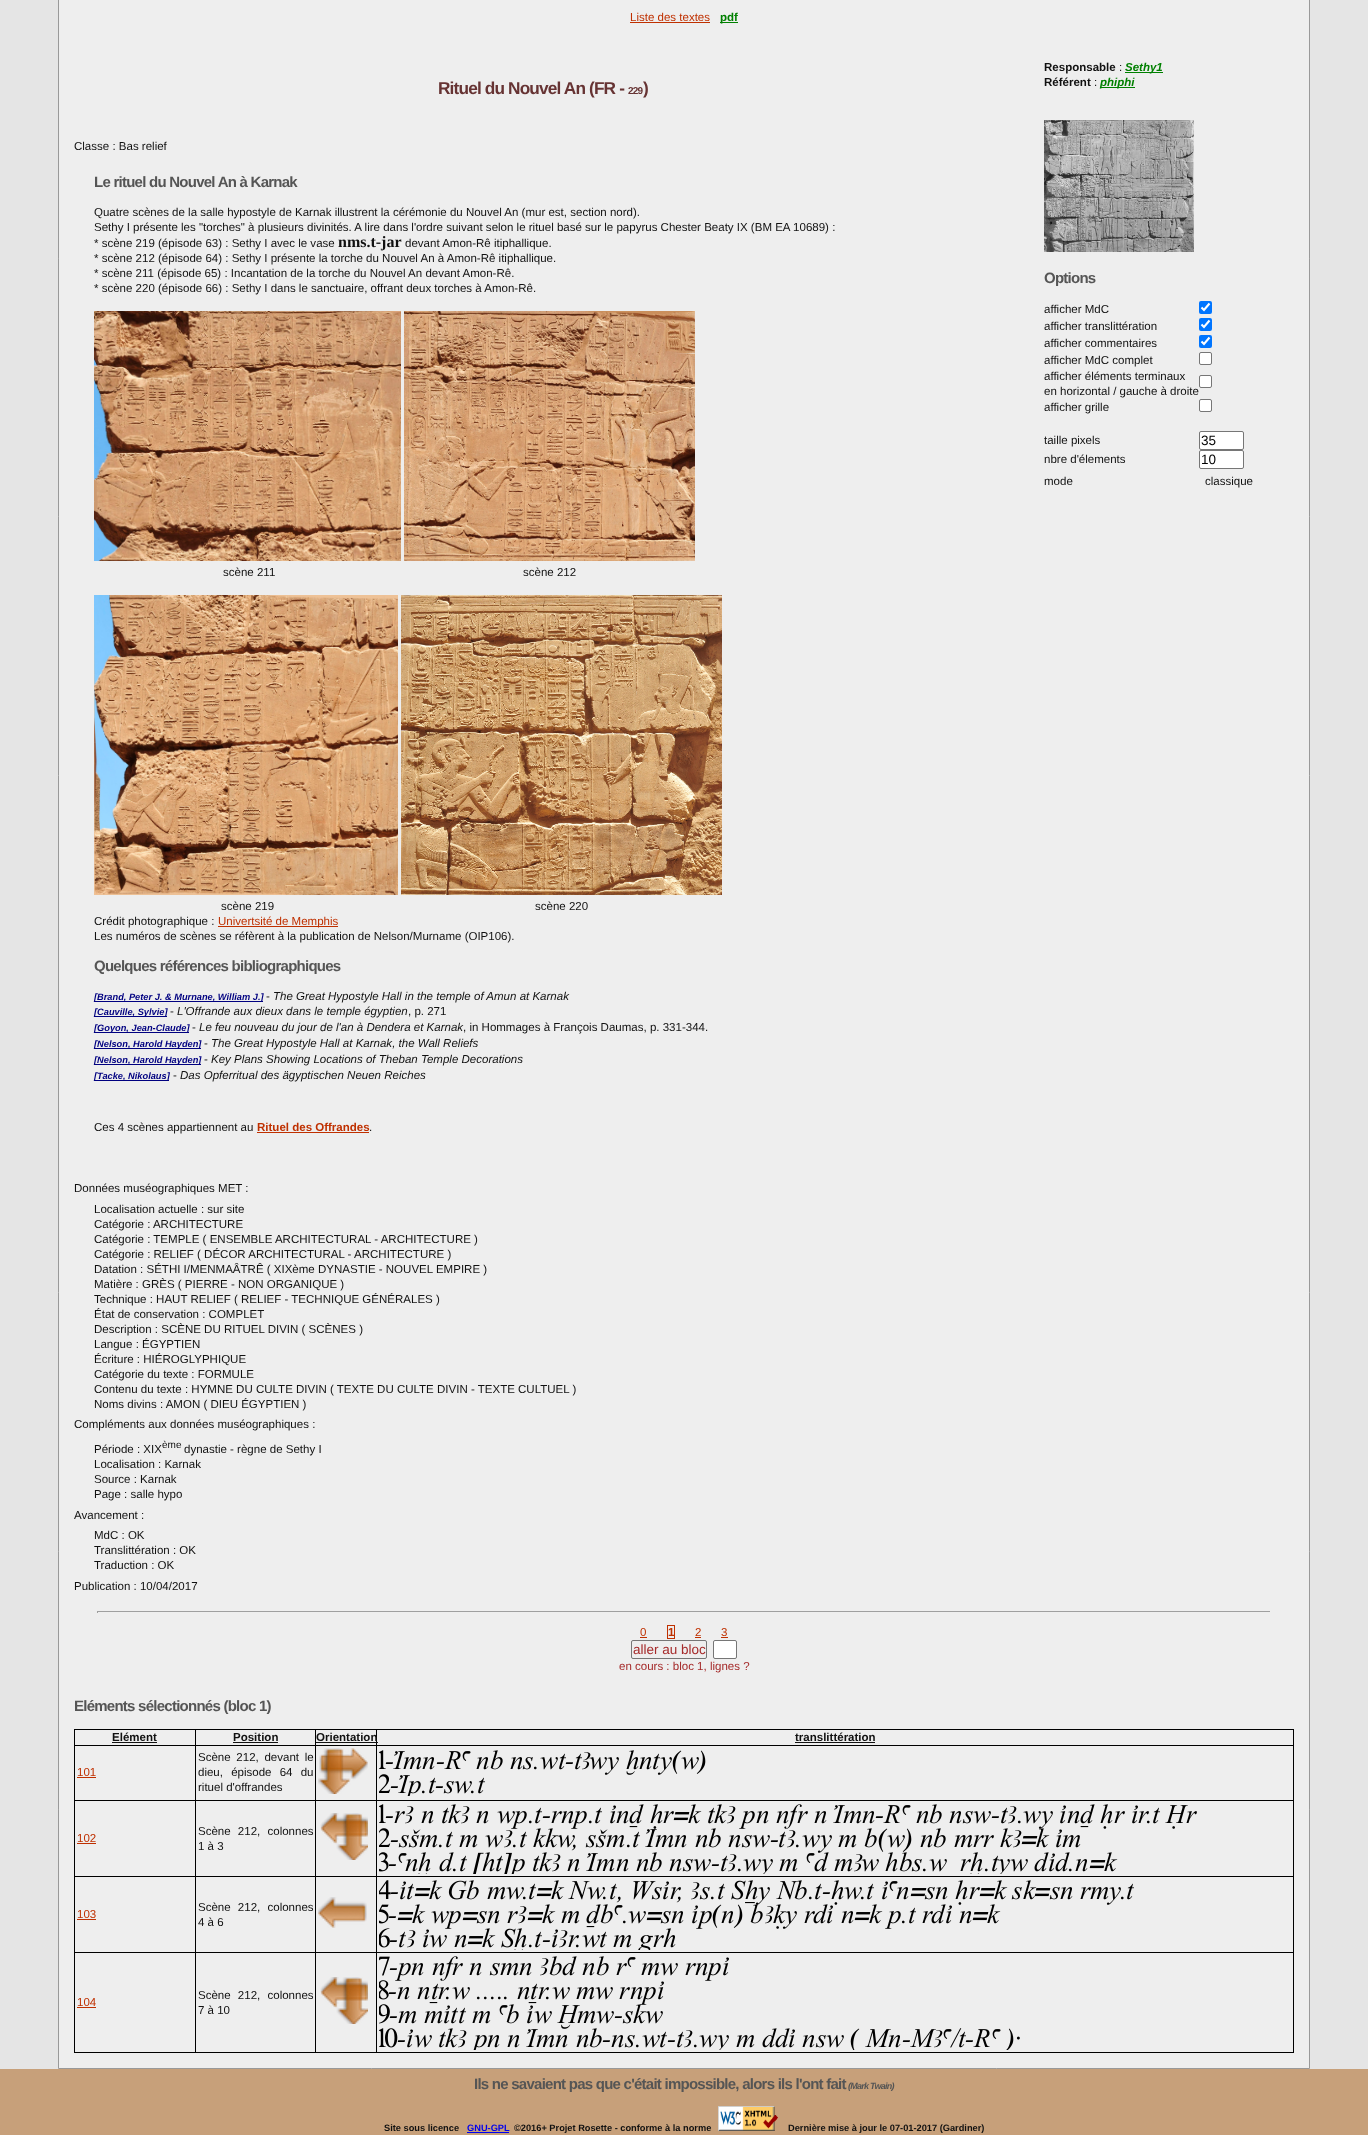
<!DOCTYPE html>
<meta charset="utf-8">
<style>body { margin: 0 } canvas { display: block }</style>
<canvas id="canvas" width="1368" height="2135"></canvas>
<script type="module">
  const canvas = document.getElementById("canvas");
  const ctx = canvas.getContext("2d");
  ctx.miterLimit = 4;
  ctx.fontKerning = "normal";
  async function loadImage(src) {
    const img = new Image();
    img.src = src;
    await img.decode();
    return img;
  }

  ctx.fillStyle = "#e5e5e5";
  ctx.fillRect(0, 0, 1368, 2135);
  ctx.fillStyle = "#eeeeee";
  ctx.beginPath();
  ctx.rect(58.5, -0.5, 1251, 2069);
  ctx.fill();
  ctx.strokeStyle = "#999999";
  ctx.stroke();
  ctx.font = "11.52px Liberation Sans";
  ctx.fillStyle = "#bf3000";
  ctx.fillText("Liste des textes", 630, 21);
  ctx.fillRect(630, 22, 80, 1);
  ctx.fillStyle = "#008000";
  ctx.fillRect(720, 22, 18, 1);
  ctx.font = "bold 11.52px Liberation Sans";
  ctx.fillText("pdf", 720, 21);
  ctx.letterSpacing = "-0.85px";
  ctx.font = "bold 17.25px Liberation Sans";
  ctx.fillStyle = "#663333";
  ctx.fillText("Rituel du Nouvel An (FR -", 438, 94);
  ctx.font = "bold 10px Liberation Sans";
  ctx.fillText("229", 628, 94);
  ctx.font = "bold 17.25px Liberation Sans";
  ctx.fillText(")", 643, 94);
  ctx.letterSpacing = "0px";
  ctx.font = "11.52px Liberation Sans";
  ctx.fillStyle = "#111111";
  ctx.fillText("Classe : Bas relief", 74, 150);
  ctx.letterSpacing = "-0.75px";
  ctx.font = "bold 15px Liberation Sans";
  ctx.fillStyle = "#555555";
  ctx.fillText("Le rituel du Nouvel An à Karnak", 94, 187);
  ctx.letterSpacing = "0px";
  ctx.font = "11.52px Liberation Sans";
  ctx.fillStyle = "#111111";
  ctx.fillText("Quatre scènes de la salle hypostyle de Karnak illustrent la cérémonie du Nouvel An (mur est, section nord).", 94, 216);
  ctx.fillText("Sethy I présente les \"torches\" à plusieurs divinités. A lire dans l'ordre suivant selon le rituel basé sur le papyrus Chester Beaty IX (BM EA 10689) :", 94, 231);
  ctx.fillText("* scène 219 (épisode 63) : Sethy I avec le vase", 94, 247);
  ctx.font = "bold 16px Liberation Serif";
  ctx.fillText("nms.t-jar", 338, 247);
  ctx.font = "11.52px Liberation Sans";
  ctx.fillText("devant Amon-Rê itiphallique.", 405, 247);
  ctx.fillText("* scène 212 (épisode 64) : Sethy I présente la torche du Nouvel An à Amon-Rê itiphallique.", 94, 262);
  ctx.fillText("* scène 211 (épisode 65) : Incantation de la torche du Nouvel An devant Amon-Rê.", 94, 277);
  ctx.fillText("* scène 220 (épisode 66) : Sethy I dans le sanctuaire, offrant deux torches à Amon-Rê.", 94, 292);
  ctx.drawImage(await loadImage("img1.png"), 94, 311, 307, 250);
  ctx.fillText("scène 211", 223, 576);
  ctx.drawImage(await loadImage("img2.png"), 404, 311, 291, 250);
  ctx.fillText("scène 212", 523, 576);
  ctx.drawImage(await loadImage("img3.png"), 94, 595, 304, 300);
  ctx.fillText("scène 219", 221, 910);
  ctx.drawImage(await loadImage("img4.png"), 401, 595, 321, 300);
  ctx.fillText("scène 220", 535, 910);
  ctx.fillText("Crédit photographique :", 94, 925);
  ctx.fillStyle = "#bf3000";
  ctx.fillRect(218, 926, 120, 1);
  ctx.fillText("Univertsité de Memphis", 218, 925);
  ctx.fillStyle = "#111111";
  ctx.fillText("Les numéros de scènes se réfèrent à la publication de Nelson/Murname (OIP106).", 94, 940);
  ctx.letterSpacing = "-0.75px";
  ctx.font = "bold 15px Liberation Sans";
  ctx.fillStyle = "#555555";
  ctx.fillText("Quelques références bibliographiques", 94, 971);
  ctx.fillStyle = "#000080";
  ctx.fillRect(94, 1001, 169, 1);
  ctx.letterSpacing = "0px";
  ctx.font = "italic bold 9.25px Liberation Sans";
  ctx.fillText("[Brand, Peter J. & Murnane, William J.]", 94, 1000);
  ctx.font = "11.52px Liberation Sans";
  ctx.fillStyle = "#111111";
  ctx.fillText("-", 266, 1000);
  ctx.font = "italic 11.52px Liberation Sans";
  ctx.fillText("The Great Hypostyle Hall in the temple of Amun at Karnak", 273, 1000);
  ctx.fillStyle = "#000080";
  ctx.fillRect(94, 1016, 73, 1);
  ctx.font = "italic bold 9.25px Liberation Sans";
  ctx.fillText("[Cauville, Sylvie]", 94, 1015);
  ctx.font = "11.52px Liberation Sans";
  ctx.fillStyle = "#111111";
  ctx.fillText("-", 170, 1015);
  ctx.font = "italic 11.52px Liberation Sans";
  ctx.fillText("L'Offrande aux dieux dans le temple égyptien", 177, 1015);
  ctx.font = "11.52px Liberation Sans";
  ctx.fillText(", p. 271", 408, 1015);
  ctx.fillStyle = "#000080";
  ctx.fillRect(94, 1032, 95, 1);
  ctx.font = "italic bold 9.25px Liberation Sans";
  ctx.fillText("[Goyon, Jean-Claude]", 94, 1031);
  ctx.font = "11.52px Liberation Sans";
  ctx.fillStyle = "#111111";
  ctx.fillText("-", 192, 1031);
  ctx.font = "italic 11.52px Liberation Sans";
  ctx.fillText("Le feu nouveau du jour de l'an à Dendera et Karnak", 199, 1031);
  ctx.font = "11.52px Liberation Sans";
  ctx.fillText(", in Hommages à François Daumas, p. 331-344.", 463, 1031);
  ctx.fillStyle = "#000080";
  ctx.fillRect(94, 1048, 107, 1);
  ctx.font = "italic bold 9.25px Liberation Sans";
  ctx.fillText("[Nelson, Harold Hayden]", 94, 1047);
  ctx.font = "11.52px Liberation Sans";
  ctx.fillStyle = "#111111";
  ctx.fillText("-", 204, 1047);
  ctx.font = "italic 11.52px Liberation Sans";
  ctx.fillText("The Great Hypostyle Hall at Karnak, the Wall Reliefs", 211, 1047);
  ctx.fillStyle = "#000080";
  ctx.fillRect(94, 1064, 107, 1);
  ctx.font = "italic bold 9.25px Liberation Sans";
  ctx.fillText("[Nelson, Harold Hayden]", 94, 1063);
  ctx.font = "11.52px Liberation Sans";
  ctx.fillStyle = "#111111";
  ctx.fillText("-", 204, 1063);
  ctx.font = "italic 11.52px Liberation Sans";
  ctx.fillText("Key Plans Showing Locations of Theban Temple Decorations", 211, 1063);
  ctx.fillStyle = "#000080";
  ctx.fillRect(94, 1080, 75, 1);
  ctx.font = "italic bold 9.25px Liberation Sans";
  ctx.fillText("[Tacke, Nikolaus]", 94, 1079);
  ctx.font = "11.52px Liberation Sans";
  ctx.fillStyle = "#111111";
  ctx.fillText("-", 173, 1079);
  ctx.font = "italic 11.52px Liberation Sans";
  ctx.fillText("Das Opferritual des ägyptischen Neuen Reiches", 180, 1079);
  ctx.font = "11.52px Liberation Sans";
  ctx.fillText("Ces 4 scènes appartiennent au", 94, 1131);
  ctx.font = "bold 11.52px Liberation Sans";
  ctx.fillStyle = "#bf3000";
  ctx.fillText("Rituel des Offrandes", 257, 1131);
  ctx.fillRect(257, 1132, 112, 1);
  ctx.font = "11.52px Liberation Sans";
  ctx.fillStyle = "#111111";
  ctx.fillText(".", 369, 1131);
  ctx.fillText("Données muséographiques MET :", 74, 1192);
  ctx.fillText("Localisation actuelle : sur site", 94, 1213);
  ctx.fillText("Catégorie : ARCHITECTURE", 94, 1228);
  ctx.fillText("Catégorie : TEMPLE ( ENSEMBLE ARCHITECTURAL - ARCHITECTURE )", 94, 1243);
  ctx.fillText("Catégorie : RELIEF ( DÉCOR ARCHITECTURAL - ARCHITECTURE )", 94, 1258);
  ctx.fillText("Datation : SÉTHI I/MENMAÂTRÊ ( XIXème DYNASTIE - NOUVEL EMPIRE )", 94, 1273);
  ctx.fillText("Matière : GRÈS ( PIERRE - NON ORGANIQUE )", 94, 1288);
  ctx.fillText("Technique : HAUT RELIEF ( RELIEF - TECHNIQUE GÉNÉRALES )", 94, 1303);
  ctx.fillText("État de conservation : COMPLET", 94, 1318);
  ctx.fillText("Description : SCÈNE DU RITUEL DIVIN ( SCÈNES )", 94, 1333);
  ctx.fillText("Langue : ÉGYPTIEN", 94, 1348);
  ctx.fillText("Écriture : HIÉROGLYPHIQUE", 94, 1363);
  ctx.fillText("Catégorie du texte : FORMULE", 94, 1378);
  ctx.fillText("Contenu du texte : HYMNE DU CULTE DIVIN ( TEXTE DU CULTE DIVIN - TEXTE CULTUEL )", 94, 1393);
  ctx.fillText("Noms divins : AMON ( DIEU ÉGYPTIEN )", 94, 1408);
  ctx.fillText("Compléments aux données muséographiques :", 74, 1428);
  ctx.fillText("Période : XIX", 94, 1453);
  ctx.font = "10px Liberation Sans";
  ctx.fillText("ème", 162, 1448);
  ctx.font = "11.52px Liberation Sans";
  ctx.fillText("dynastie - règne de Sethy I", 184, 1453);
  ctx.fillText("Localisation : Karnak", 94, 1468);
  ctx.fillText("Source : Karnak", 94, 1483);
  ctx.fillText("Page : salle hypo", 94, 1498);
  ctx.fillText("Avancement :", 74, 1519);
  ctx.fillText("MdC : OK", 94, 1539);
  ctx.fillText("Translittération : OK", 94, 1554);
  ctx.fillText("Traduction : OK", 94, 1569);
  ctx.fillText("Publication : 10/04/2017", 74, 1590);
  ctx.font = "bold 11.52px Liberation Sans";
  ctx.fillText("Responsable", 1044, 71);
  ctx.font = "11.52px Liberation Sans";
  ctx.fillText(":", 1119, 71);
  ctx.fillStyle = "#008000";
  ctx.fillRect(1125, 72, 38, 1);
  ctx.font = "italic bold 11.52px Liberation Sans";
  ctx.fillText("Sethy1", 1125, 71);
  ctx.font = "bold 11.52px Liberation Sans";
  ctx.fillStyle = "#111111";
  ctx.fillText("Référent", 1044, 86);
  ctx.font = "11.52px Liberation Sans";
  ctx.fillText(":", 1094, 86);
  ctx.fillStyle = "#008000";
  ctx.fillRect(1100, 87, 35, 1);
  ctx.font = "italic bold 11.52px Liberation Sans";
  ctx.fillText("phiphi", 1100, 86);
  ctx.drawImage(await loadImage("img5.png"), 1044, 120, 150, 132);
  ctx.letterSpacing = "-0.75px";
  ctx.font = "bold 15px Liberation Sans";
  ctx.fillStyle = "#555555";
  ctx.fillText("Options", 1044, 283);
  ctx.letterSpacing = "0px";
  ctx.font = "11.52px Liberation Sans";
  ctx.fillStyle = "#111111";
  ctx.fillText("afficher MdC", 1044, 313);
  ctx.fillStyle = "#0075ff";
  ctx.beginPath();
  ctx.roundRect(1199, 301, 13, 13, 2);
  ctx.fill();
  ctx.beginPath();
  ctx.moveTo(1201.5, 307.5);
  ctx.lineTo(1204, 310);
  ctx.lineTo(1209.5, 303.5);
  ctx.strokeStyle = "#ffffff";
  ctx.lineWidth = 2.1;
  ctx.stroke();
  ctx.fillStyle = "#111111";
  ctx.fillText("afficher translittération", 1044, 330);
  ctx.fillStyle = "#0075ff";
  ctx.beginPath();
  ctx.roundRect(1199, 318, 13, 13, 2);
  ctx.fill();
  ctx.beginPath();
  ctx.moveTo(1201.5, 324.5);
  ctx.lineTo(1204, 327);
  ctx.lineTo(1209.5, 320.5);
  ctx.stroke();
  ctx.fillStyle = "#111111";
  ctx.fillText("afficher commentaires", 1044, 347);
  ctx.fillStyle = "#0075ff";
  ctx.beginPath();
  ctx.roundRect(1199, 335, 13, 13, 2);
  ctx.fill();
  ctx.beginPath();
  ctx.moveTo(1201.5, 341.5);
  ctx.lineTo(1204, 344);
  ctx.lineTo(1209.5, 337.5);
  ctx.stroke();
  ctx.fillStyle = "#111111";
  ctx.fillText("afficher MdC complet", 1044, 364);
  ctx.fillStyle = "#ffffff";
  ctx.beginPath();
  ctx.roundRect(1199.5, 352.5, 12, 12, 1.5);
  ctx.fill();
  ctx.strokeStyle = "#767676";
  ctx.lineWidth = 1;
  ctx.stroke();
  ctx.fillStyle = "#111111";
  ctx.fillText("afficher éléments terminaux", 1044, 380);
  ctx.fillText("en horizontal / gauche à droite", 1044, 395);
  ctx.fillStyle = "#ffffff";
  ctx.beginPath();
  ctx.roundRect(1199.5, 375.5, 12, 12, 1.5);
  ctx.fill();
  ctx.stroke();
  ctx.fillStyle = "#111111";
  ctx.fillText("afficher grille", 1044, 411);
  ctx.fillStyle = "#ffffff";
  ctx.beginPath();
  ctx.roundRect(1199.5, 399.5, 12, 12, 1.5);
  ctx.fill();
  ctx.stroke();
  ctx.fillStyle = "#111111";
  ctx.fillText("taille pixels", 1044, 444);
  ctx.fillStyle = "#ffffff";
  ctx.beginPath();
  ctx.roundRect(1199.5, 431.5, 44, 18, 1.5);
  ctx.fill();
  ctx.stroke();
  ctx.font = "13.5px Liberation Sans";
  ctx.fillStyle = "#000000";
  ctx.fillText("35", 1201, 445);
  ctx.font = "11.52px Liberation Sans";
  ctx.fillStyle = "#111111";
  ctx.fillText("nbre d'élements", 1044, 463);
  ctx.fillStyle = "#ffffff";
  ctx.beginPath();
  ctx.roundRect(1199.5, 450.5, 44, 18, 1.5);
  ctx.fill();
  ctx.stroke();
  ctx.font = "13.5px Liberation Sans";
  ctx.fillStyle = "#000000";
  ctx.fillText("10", 1201, 464);
  ctx.font = "11.52px Liberation Sans";
  ctx.fillStyle = "#111111";
  ctx.fillText("mode", 1044, 485);
  ctx.fillText("classique", 1205, 485);
  ctx.fillStyle = "#9f9f9f";
  ctx.fillRect(97, 1611, 1174, 1);
  ctx.fillStyle = "#eeeeee";
  ctx.fillRect(1270, 1611, 1, 2);
  ctx.fillStyle = "#9f9f9f";
  ctx.fillRect(97, 1611, 1, 2);
  ctx.fillStyle = "#bf3000";
  ctx.fillText("0", 640, 1636);
  ctx.fillRect(640, 1637, 7, 1);
  ctx.strokeStyle = "#bf3000";
  ctx.strokeRect(667.5, 1625.5, 7, 13);
  ctx.font = "bold 11.52px Liberation Sans";
  ctx.fillText("1", 668, 1636);
  ctx.font = "11.52px Liberation Sans";
  ctx.fillText("2", 695, 1636);
  ctx.fillRect(695, 1637, 6, 1);
  ctx.fillText("3", 721, 1636);
  ctx.fillRect(721, 1637, 7, 1);
  ctx.beginPath();
  ctx.roundRect(631.5, 1640.5, 75, 18, 1.5);
  ctx.strokeStyle = "#767676";
  ctx.stroke();
  ctx.font = "13.5px Liberation Sans";
  ctx.fillStyle = "#a52a2a";
  ctx.fillText("aller au bloc", 633, 1654);
  ctx.fillStyle = "#ffffff";
  ctx.beginPath();
  ctx.roundRect(713.5, 1640.5, 23, 18, 1.5);
  ctx.fill();
  ctx.stroke();
  ctx.font = "11.52px Liberation Sans";
  ctx.fillStyle = "#a52a2a";
  ctx.fillText("en cours : bloc 1, lignes ?", 619, 1670);
  ctx.letterSpacing = "-0.75px";
  ctx.font = "bold 15px Liberation Sans";
  ctx.fillStyle = "#555555";
  ctx.fillText("Eléments sélectionnés (bloc 1)", 74, 1711);
  ctx.fillStyle = "#000000";
  ctx.fillRect(376, 1729, 918, 1);
  ctx.fillRect(376, 1745, 918, 1);
  ctx.fillRect(376, 1800, 918, 1);
  ctx.fillRect(376, 1876, 918, 1);
  ctx.fillRect(376, 1952, 918, 1);
  ctx.fillRect(1293, 1952, 1, 101);
  ctx.fillRect(376, 2052, 918, 1);
  ctx.fillRect(376, 1952, 1, 101);
  ctx.fillRect(315, 1952, 62, 1);
  ctx.fillRect(376, 1876, 1, 77);
  ctx.fillRect(315, 1876, 62, 1);
  ctx.fillRect(376, 1800, 1, 77);
  ctx.fillRect(315, 1800, 62, 1);
  ctx.fillRect(376, 1745, 1, 56);
  ctx.fillRect(315, 1745, 62, 1);
  ctx.fillRect(376, 1729, 1, 17);
  ctx.fillRect(315, 1729, 62, 1);
  ctx.fillRect(315, 2052, 62, 1);
  ctx.fillRect(315, 1952, 1, 101);
  ctx.fillRect(195, 1952, 121, 1);
  ctx.fillRect(315, 1876, 1, 77);
  ctx.fillRect(195, 1876, 121, 1);
  ctx.fillRect(315, 1800, 1, 77);
  ctx.fillRect(195, 1800, 121, 1);
  ctx.fillRect(315, 1745, 1, 56);
  ctx.fillRect(195, 1745, 121, 1);
  ctx.fillRect(315, 1729, 1, 17);
  ctx.fillRect(195, 1729, 121, 1);
  ctx.fillRect(195, 2052, 121, 1);
  ctx.fillRect(195, 1952, 1, 101);
  ctx.fillRect(74, 1952, 122, 1);
  ctx.fillRect(195, 1876, 1, 77);
  ctx.fillRect(74, 1876, 122, 1);
  ctx.fillRect(195, 1800, 1, 77);
  ctx.fillRect(74, 1800, 122, 1);
  ctx.fillRect(195, 1745, 1, 56);
  ctx.fillRect(74, 1745, 122, 1);
  ctx.fillRect(195, 1729, 1, 17);
  ctx.fillRect(74, 1729, 122, 1);
  ctx.fillRect(74, 2052, 122, 1);
  ctx.fillRect(74, 1952, 1, 101);
  ctx.fillRect(74, 1876, 1, 77);
  ctx.fillRect(74, 1800, 1, 77);
  ctx.fillRect(74, 1745, 1, 56);
  ctx.fillRect(74, 1729, 1, 17);
  ctx.letterSpacing = "0px";
  ctx.font = "bold 11.52px Liberation Sans";
  ctx.fillStyle = "#111111";
  ctx.fillText("Elément", 112, 1741);
  ctx.fillRect(112, 1742, 45, 1);
  ctx.fillText("Position", 233, 1741);
  ctx.fillRect(233, 1742, 45, 1);
  ctx.fillText("Orientation", 316, 1741);
  ctx.fillRect(316, 1742, 62, 1);
  ctx.fillStyle = "#000000";
  ctx.fillRect(1293, 1876, 1, 77);
  ctx.fillRect(1293, 1800, 1, 77);
  ctx.fillRect(1293, 1745, 1, 56);
  ctx.fillRect(1293, 1729, 1, 17);
  ctx.fillStyle = "#111111";
  ctx.fillText("translittération", 795, 1741);
  ctx.fillRect(795, 1742, 80, 1);
  ctx.font = "11.52px Liberation Sans";
  ctx.fillStyle = "#bf3000";
  ctx.fillText("101", 77, 1776);
  ctx.fillRect(77, 1777, 19, 1);
  ctx.wordSpacing = "2.5px";
  ctx.fillStyle = "#111111";
  ctx.fillText("Scène 212, devant le", 198, 1761);
  ctx.wordSpacing = "5px";
  ctx.fillText("dieu, épisode 64 du", 198, 1776);
  ctx.wordSpacing = "0px";
  ctx.fillText("rituel d'offrandes", 198, 1791);
  ctx.drawImage(await loadImage("img6.png"), 318, 1748, 50, 46);
  ctx.drawImage(await loadImage("img7.png"), 379, 1750, 327, 46);
  ctx.fillStyle = "#bf3000";
  ctx.fillText("102", 77, 1842);
  ctx.fillRect(77, 1843, 19, 1);
  ctx.wordSpacing = "4px";
  ctx.fillStyle = "#111111";
  ctx.fillText("Scène 212, colonnes", 198, 1835);
  ctx.wordSpacing = "0px";
  ctx.fillText("1 à 3", 198, 1850);
  ctx.drawImage(await loadImage("img8.png"), 320, 1813, 48, 47);
  ctx.drawImage(await loadImage("img9.png"), 379, 1804, 818, 70);
  ctx.fillStyle = "#bf3000";
  ctx.fillText("103", 77, 1918);
  ctx.fillRect(77, 1919, 19, 1);
  ctx.wordSpacing = "4px";
  ctx.fillStyle = "#111111";
  ctx.fillText("Scène 212, colonnes", 198, 1911);
  ctx.wordSpacing = "0px";
  ctx.fillText("4 à 6", 198, 1926);
  ctx.drawImage(await loadImage("img10.png"), 318, 1897, 49, 31);
  ctx.drawImage(await loadImage("img11.png"), 379, 1880, 755, 70);
  ctx.fillStyle = "#bf3000";
  ctx.fillText("104", 77, 2006);
  ctx.fillRect(77, 2007, 19, 1);
  ctx.wordSpacing = "4px";
  ctx.fillStyle = "#111111";
  ctx.fillText("Scène 212, colonnes", 198, 1999);
  ctx.wordSpacing = "0px";
  ctx.fillText("7 à 10", 198, 2014);
  ctx.drawImage(await loadImage("img8.png"), 320, 1977, 48, 47);
  ctx.drawImage(await loadImage("img12.png"), 379, 1956, 641, 94);
  ctx.fillStyle = "#c7a07a";
  ctx.fillRect(0, 2069, 1368, 66);
  ctx.letterSpacing = "-0.75px";
  ctx.font = "bold 15px Liberation Sans";
  ctx.fillStyle = "#555555";
  ctx.fillText("Ils ne savaient pas que c'était impossible, alors ils l'ont fait", 474, 2089);
  ctx.font = "italic bold 9px Liberation Sans";
  ctx.fillText("(Mark Twain)", 848, 2089);
  ctx.letterSpacing = "0px";
  ctx.font = "bold 9.25px Liberation Sans";
  ctx.fillStyle = "#111111";
  ctx.fillText("Site sous licence", 384, 2131);
  ctx.fillStyle = "#0000ee";
  ctx.fillText("GNU-GPL", 467, 2131);
  ctx.fillRect(467, 2132, 42, 1);
  ctx.fillStyle = "#111111";
  ctx.fillText("©2016+ Projet Rosette - conforme à la norme", 514, 2131);
  ctx.drawImage(await loadImage("img13.png"), 718, 2106, 60, 25);
  ctx.fillText("Dernière mise à jour le 07-01-2017 (Gardiner)", 788, 2131);
</script>
